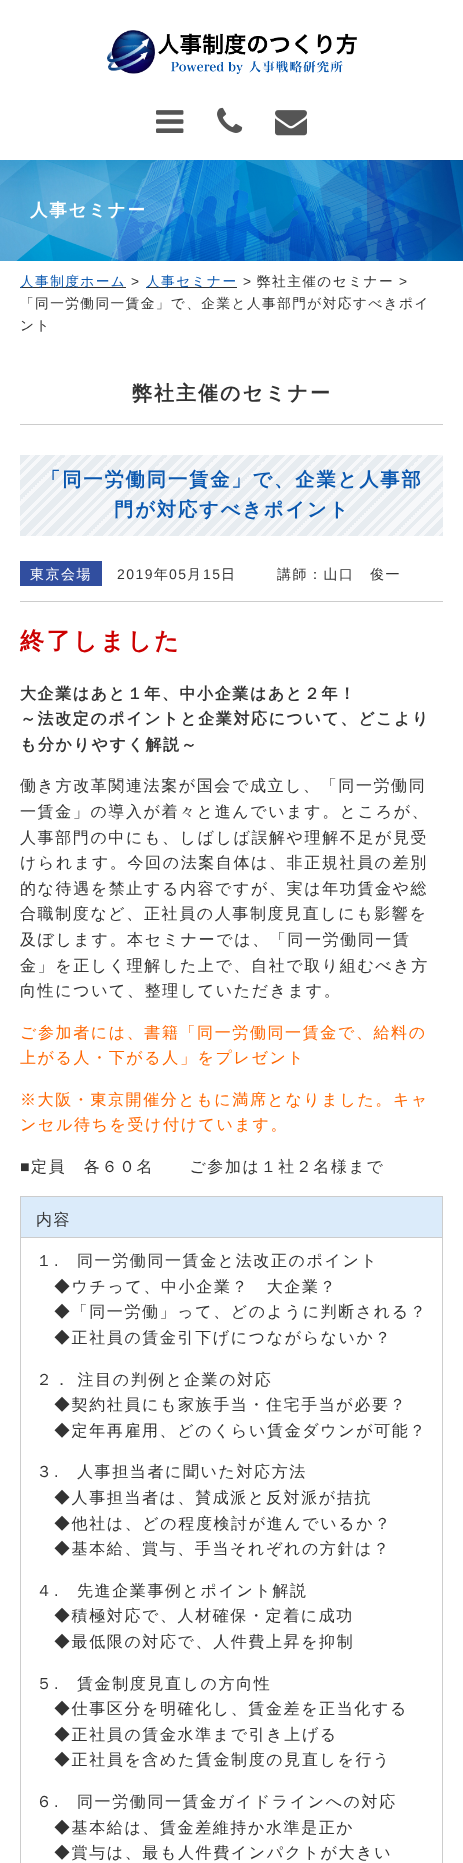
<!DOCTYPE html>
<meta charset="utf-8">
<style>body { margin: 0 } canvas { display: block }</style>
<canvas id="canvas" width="463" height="1863"></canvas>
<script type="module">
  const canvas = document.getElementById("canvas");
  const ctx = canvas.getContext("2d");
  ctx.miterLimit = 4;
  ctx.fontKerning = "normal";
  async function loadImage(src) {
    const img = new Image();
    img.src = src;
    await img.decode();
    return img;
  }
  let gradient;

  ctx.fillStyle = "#ffffff";
  ctx.fillRect(0, 0, 463, 1863);
  ctx.drawImage(await loadImage("img1.png"), 107, 30, 250, 44);
  ctx.drawImage(await loadImage("img2.png"), 156, 110, 28, 23);
  ctx.drawImage(await loadImage("img3.png"), 217, 107, 26, 26);
  ctx.drawImage(await loadImage("img4.png"), 275, 110, 32, 26);
  ctx.drawImage(await loadImage("img5.png"), 0, 160, 463, 101);
  ctx.letterSpacing = "1.75px";
  ctx.font = "bold 17.5px WenQuanYi Zen Hei";
  ctx.fillText("人事セミナー", 30, 216);
  ctx.fillStyle = "#333333";
  ctx.fillRect(20, 287, 106, 1);
  ctx.letterSpacing = "1.4px";
  ctx.font = "500 13.7px WenQuanYi Zen Hei";
  ctx.fillStyle = "#0b58af";
  ctx.fillText("人事制度ホーム", 20, 286);
  ctx.font = "13.7px Liberation Sans";
  ctx.fillStyle = "#333333";
  ctx.fillText(">", 131, 286);
  ctx.fillRect(146, 287, 91, 1);
  ctx.font = "500 13.7px WenQuanYi Zen Hei";
  ctx.fillStyle = "#0b58af";
  ctx.fillText("人事セミナー", 146, 286);
  ctx.font = "13.7px Liberation Sans";
  ctx.fillStyle = "#333333";
  ctx.fillText(">", 243, 286);
  ctx.font = "500 13.7px WenQuanYi Zen Hei";
  ctx.fillText("弊社主催のセミナー", 257, 286);
  ctx.font = "13.7px Liberation Sans";
  ctx.fillText(">", 399, 286);
  ctx.font = "500 13.7px WenQuanYi Zen Hei";
  ctx.fillText("「同一労働同一賃金」で、企業と人事部門が対応すべきポイ", 20, 308);
  ctx.fillText("ント", 20, 330);
  ctx.fillStyle = "#cccccc";
  ctx.fillRect(20, 424, 423, 1);
  ctx.letterSpacing = "2px";
  ctx.font = "bold 20px WenQuanYi Zen Hei";
  ctx.fillStyle = "#333333";
  ctx.fillText("弊社主催のセミナー", 132, 400);
  gradient = ctx.createLinearGradient(358, 622, 103, 367);
  gradient.addColorStop(0, "#e7ecf0");
  gradient.addColorStop(0.01, "#e7ecf0");
  gradient.addColorStop(0.01, "#f7f8fa");
  gradient.addColorStop(0.02, "#f7f8fa");
  gradient.addColorStop(0.02, "#e7ecf0");
  gradient.addColorStop(0.03, "#e7ecf0");
  gradient.addColorStop(0.03, "#f7f8fa");
  gradient.addColorStop(0.03, "#f7f8fa");
  gradient.addColorStop(0.03, "#e7ecf0");
  gradient.addColorStop(0.04, "#e7ecf0");
  gradient.addColorStop(0.04, "#f7f8fa");
  gradient.addColorStop(0.05, "#f7f8fa");
  gradient.addColorStop(0.05, "#e7ecf0");
  gradient.addColorStop(0.06, "#e7ecf0");
  gradient.addColorStop(0.06, "#f7f8fa");
  gradient.addColorStop(0.07, "#f7f8fa");
  gradient.addColorStop(0.07, "#e7ecf0");
  gradient.addColorStop(0.07, "#e7ecf0");
  gradient.addColorStop(0.07, "#f7f8fa");
  gradient.addColorStop(0.08, "#f7f8fa");
  gradient.addColorStop(0.08, "#e7ecf0");
  gradient.addColorStop(0.09, "#e7ecf0");
  gradient.addColorStop(0.09, "#f7f8fa");
  gradient.addColorStop(0.1, "#f7f8fa");
  gradient.addColorStop(0.1, "#e7ecf0");
  gradient.addColorStop(0.11, "#e7ecf0");
  gradient.addColorStop(0.11, "#f7f8fa");
  gradient.addColorStop(0.12, "#f7f8fa");
  gradient.addColorStop(0.12, "#e7ecf0");
  gradient.addColorStop(0.12, "#e7ecf0");
  gradient.addColorStop(0.12, "#f7f8fa");
  gradient.addColorStop(0.13, "#f7f8fa");
  gradient.addColorStop(0.13, "#e7ecf0");
  gradient.addColorStop(0.14, "#e7ecf0");
  gradient.addColorStop(0.14, "#f7f8fa");
  gradient.addColorStop(0.15, "#f7f8fa");
  gradient.addColorStop(0.15, "#e7ecf0");
  gradient.addColorStop(0.16, "#e7ecf0");
  gradient.addColorStop(0.16, "#f7f8fa");
  gradient.addColorStop(0.17, "#f7f8fa");
  gradient.addColorStop(0.17, "#e7ecf0");
  gradient.addColorStop(0.18, "#e7ecf0");
  gradient.addColorStop(0.18, "#f7f8fa");
  gradient.addColorStop(0.18, "#f7f8fa");
  gradient.addColorStop(0.18, "#e7ecf0");
  gradient.addColorStop(0.19, "#e7ecf0");
  gradient.addColorStop(0.19, "#f7f8fa");
  gradient.addColorStop(0.2, "#f7f8fa");
  gradient.addColorStop(0.2, "#e7ecf0");
  gradient.addColorStop(0.21, "#e7ecf0");
  gradient.addColorStop(0.21, "#f7f8fa");
  gradient.addColorStop(0.22, "#f7f8fa");
  gradient.addColorStop(0.22, "#e7ecf0");
  gradient.addColorStop(0.23, "#e7ecf0");
  gradient.addColorStop(0.23, "#f7f8fa");
  gradient.addColorStop(0.23, "#f7f8fa");
  gradient.addColorStop(0.23, "#e7ecf0");
  gradient.addColorStop(0.24, "#e7ecf0");
  gradient.addColorStop(0.24, "#f7f8fa");
  gradient.addColorStop(0.25, "#f7f8fa");
  gradient.addColorStop(0.25, "#e7ecf0");
  gradient.addColorStop(0.26, "#e7ecf0");
  gradient.addColorStop(0.26, "#f7f8fa");
  gradient.addColorStop(0.27, "#f7f8fa");
  gradient.addColorStop(0.27, "#e7ecf0");
  gradient.addColorStop(0.28, "#e7ecf0");
  gradient.addColorStop(0.28, "#f7f8fa");
  gradient.addColorStop(0.28, "#f7f8fa");
  gradient.addColorStop(0.28, "#e7ecf0");
  gradient.addColorStop(0.29, "#e7ecf0");
  gradient.addColorStop(0.29, "#f7f8fa");
  gradient.addColorStop(0.3, "#f7f8fa");
  gradient.addColorStop(0.3, "#e7ecf0");
  gradient.addColorStop(0.31, "#e7ecf0");
  gradient.addColorStop(0.31, "#f7f8fa");
  gradient.addColorStop(0.32, "#f7f8fa");
  gradient.addColorStop(0.32, "#e7ecf0");
  gradient.addColorStop(0.33, "#e7ecf0");
  gradient.addColorStop(0.33, "#f7f8fa");
  gradient.addColorStop(0.33, "#f7f8fa");
  gradient.addColorStop(0.33, "#e7ecf0");
  gradient.addColorStop(0.34, "#e7ecf0");
  gradient.addColorStop(0.34, "#f7f8fa");
  gradient.addColorStop(0.35, "#f7f8fa");
  gradient.addColorStop(0.35, "#e7ecf0");
  gradient.addColorStop(0.36, "#e7ecf0");
  gradient.addColorStop(0.36, "#f7f8fa");
  gradient.addColorStop(0.37, "#f7f8fa");
  gradient.addColorStop(0.37, "#e7ecf0");
  gradient.addColorStop(0.38, "#e7ecf0");
  gradient.addColorStop(0.38, "#f7f8fa");
  gradient.addColorStop(0.38, "#f7f8fa");
  gradient.addColorStop(0.38, "#e7ecf0");
  gradient.addColorStop(0.39, "#e7ecf0");
  gradient.addColorStop(0.39, "#f7f8fa");
  gradient.addColorStop(0.4, "#f7f8fa");
  gradient.addColorStop(0.4, "#e7ecf0");
  gradient.addColorStop(0.41, "#e7ecf0");
  gradient.addColorStop(0.41, "#f7f8fa");
  gradient.addColorStop(0.42, "#f7f8fa");
  gradient.addColorStop(0.42, "#e7ecf0");
  gradient.addColorStop(0.43, "#e7ecf0");
  gradient.addColorStop(0.43, "#f7f8fa");
  gradient.addColorStop(0.43, "#f7f8fa");
  gradient.addColorStop(0.43, "#e7ecf0");
  gradient.addColorStop(0.44, "#e7ecf0");
  gradient.addColorStop(0.44, "#f7f8fa");
  gradient.addColorStop(0.45, "#f7f8fa");
  gradient.addColorStop(0.45, "#e7ecf0");
  gradient.addColorStop(0.46, "#e7ecf0");
  gradient.addColorStop(0.46, "#f7f8fa");
  gradient.addColorStop(0.47, "#f7f8fa");
  gradient.addColorStop(0.47, "#e7ecf0");
  gradient.addColorStop(0.48, "#e7ecf0");
  gradient.addColorStop(0.48, "#f7f8fa");
  gradient.addColorStop(0.48, "#f7f8fa");
  gradient.addColorStop(0.48, "#e7ecf0");
  gradient.addColorStop(0.49, "#e7ecf0");
  gradient.addColorStop(0.49, "#f7f8fa");
  gradient.addColorStop(0.5, "#f7f8fa");
  gradient.addColorStop(0.5, "#e7ecf0");
  gradient.addColorStop(0.51, "#e7ecf0");
  gradient.addColorStop(0.51, "#f7f8fa");
  gradient.addColorStop(0.52, "#f7f8fa");
  gradient.addColorStop(0.52, "#e7ecf0");
  gradient.addColorStop(0.53, "#e7ecf0");
  gradient.addColorStop(0.53, "#f7f8fa");
  gradient.addColorStop(0.53, "#f7f8fa");
  gradient.addColorStop(0.53, "#e7ecf0");
  gradient.addColorStop(0.54, "#e7ecf0");
  gradient.addColorStop(0.54, "#f7f8fa");
  gradient.addColorStop(0.55, "#f7f8fa");
  gradient.addColorStop(0.55, "#e7ecf0");
  gradient.addColorStop(0.56, "#e7ecf0");
  gradient.addColorStop(0.56, "#f7f8fa");
  gradient.addColorStop(0.57, "#f7f8fa");
  gradient.addColorStop(0.57, "#e7ecf0");
  gradient.addColorStop(0.58, "#e7ecf0");
  gradient.addColorStop(0.58, "#f7f8fa");
  gradient.addColorStop(0.58, "#f7f8fa");
  gradient.addColorStop(0.58, "#e7ecf0");
  gradient.addColorStop(0.59, "#e7ecf0");
  gradient.addColorStop(0.59, "#f7f8fa");
  gradient.addColorStop(0.6, "#f7f8fa");
  gradient.addColorStop(0.6, "#e7ecf0");
  gradient.addColorStop(0.61, "#e7ecf0");
  gradient.addColorStop(0.61, "#f7f8fa");
  gradient.addColorStop(0.62, "#f7f8fa");
  gradient.addColorStop(0.62, "#e7ecf0");
  gradient.addColorStop(0.62, "#e7ecf0");
  gradient.addColorStop(0.62, "#f7f8fa");
  gradient.addColorStop(0.63, "#f7f8fa");
  gradient.addColorStop(0.63, "#e7ecf0");
  gradient.addColorStop(0.64, "#e7ecf0");
  gradient.addColorStop(0.64, "#f7f8fa");
  gradient.addColorStop(0.65, "#f7f8fa");
  gradient.addColorStop(0.65, "#e7ecf0");
  gradient.addColorStop(0.66, "#e7ecf0");
  gradient.addColorStop(0.66, "#f7f8fa");
  gradient.addColorStop(0.67, "#f7f8fa");
  gradient.addColorStop(0.67, "#e7ecf0");
  gradient.addColorStop(0.68, "#e7ecf0");
  gradient.addColorStop(0.68, "#f7f8fa");
  gradient.addColorStop(0.68, "#f7f8fa");
  gradient.addColorStop(0.68, "#e7ecf0");
  gradient.addColorStop(0.69, "#e7ecf0");
  gradient.addColorStop(0.69, "#f7f8fa");
  gradient.addColorStop(0.7, "#f7f8fa");
  gradient.addColorStop(0.7, "#e7ecf0");
  gradient.addColorStop(0.71, "#e7ecf0");
  gradient.addColorStop(0.71, "#f7f8fa");
  gradient.addColorStop(0.72, "#f7f8fa");
  gradient.addColorStop(0.72, "#e7ecf0");
  gradient.addColorStop(0.72, "#e7ecf0");
  gradient.addColorStop(0.72, "#f7f8fa");
  gradient.addColorStop(0.73, "#f7f8fa");
  gradient.addColorStop(0.73, "#e7ecf0");
  gradient.addColorStop(0.74, "#e7ecf0");
  gradient.addColorStop(0.74, "#f7f8fa");
  gradient.addColorStop(0.75, "#f7f8fa");
  gradient.addColorStop(0.75, "#e7ecf0");
  gradient.addColorStop(0.76, "#e7ecf0");
  gradient.addColorStop(0.76, "#f7f8fa");
  gradient.addColorStop(0.77, "#f7f8fa");
  gradient.addColorStop(0.77, "#e7ecf0");
  gradient.addColorStop(0.78, "#e7ecf0");
  gradient.addColorStop(0.78, "#f7f8fa");
  gradient.addColorStop(0.78, "#f7f8fa");
  gradient.addColorStop(0.78, "#e7ecf0");
  gradient.addColorStop(0.79, "#e7ecf0");
  gradient.addColorStop(0.79, "#f7f8fa");
  gradient.addColorStop(0.8, "#f7f8fa");
  gradient.addColorStop(0.8, "#e7ecf0");
  gradient.addColorStop(0.81, "#e7ecf0");
  gradient.addColorStop(0.81, "#f7f8fa");
  gradient.addColorStop(0.82, "#f7f8fa");
  gradient.addColorStop(0.82, "#e7ecf0");
  gradient.addColorStop(0.83, "#e7ecf0");
  gradient.addColorStop(0.83, "#f7f8fa");
  gradient.addColorStop(0.83, "#f7f8fa");
  gradient.addColorStop(0.83, "#e7ecf0");
  gradient.addColorStop(0.84, "#e7ecf0");
  gradient.addColorStop(0.84, "#f7f8fa");
  gradient.addColorStop(0.85, "#f7f8fa");
  gradient.addColorStop(0.85, "#e7ecf0");
  gradient.addColorStop(0.86, "#e7ecf0");
  gradient.addColorStop(0.86, "#f7f8fa");
  gradient.addColorStop(0.87, "#f7f8fa");
  gradient.addColorStop(0.87, "#e7ecf0");
  gradient.addColorStop(0.88, "#e7ecf0");
  gradient.addColorStop(0.88, "#f7f8fa");
  gradient.addColorStop(0.88, "#f7f8fa");
  gradient.addColorStop(0.88, "#e7ecf0");
  gradient.addColorStop(0.89, "#e7ecf0");
  gradient.addColorStop(0.89, "#f7f8fa");
  gradient.addColorStop(0.9, "#f7f8fa");
  gradient.addColorStop(0.9, "#e7ecf0");
  gradient.addColorStop(0.91, "#e7ecf0");
  gradient.addColorStop(0.91, "#f7f8fa");
  gradient.addColorStop(0.92, "#f7f8fa");
  gradient.addColorStop(0.92, "#e7ecf0");
  gradient.addColorStop(0.93, "#e7ecf0");
  gradient.addColorStop(0.93, "#f7f8fa");
  gradient.addColorStop(0.93, "#f7f8fa");
  gradient.addColorStop(0.93, "#e7ecf0");
  gradient.addColorStop(0.94, "#e7ecf0");
  gradient.addColorStop(0.94, "#f7f8fa");
  gradient.addColorStop(0.95, "#f7f8fa");
  gradient.addColorStop(0.95, "#e7ecf0");
  gradient.addColorStop(0.96, "#e7ecf0");
  gradient.addColorStop(0.96, "#f7f8fa");
  gradient.addColorStop(0.97, "#f7f8fa");
  gradient.addColorStop(0.97, "#e7ecf0");
  gradient.addColorStop(0.98, "#e7ecf0");
  gradient.addColorStop(0.98, "#f7f8fa");
  gradient.addColorStop(0.98, "#f7f8fa");
  gradient.addColorStop(0.98, "#e7ecf0");
  gradient.addColorStop(0.99, "#e7ecf0");
  gradient.addColorStop(0.99, "#f7f8fa");
  gradient.addColorStop(1, "#f7f8fa");
  ctx.fillStyle = gradient;
  ctx.fillRect(20, 455, 423, 81);
  ctx.letterSpacing = "1.9px";
  ctx.font = "bold 19.25px WenQuanYi Zen Hei";
  ctx.fillStyle = "#0b58af";
  ctx.fillText("「同一労働同一賃金」で、企業と人事部", 41, 486);
  ctx.fillText("門が対応すべきポイント", 114, 516);
  ctx.fillStyle = "#cccccc";
  ctx.fillRect(20, 601, 423, 1);
  ctx.fillStyle = "#314e9f";
  ctx.fillRect(20, 561, 82, 25);
  ctx.letterSpacing = "1.5px";
  ctx.font = "500 14px WenQuanYi Zen Hei";
  ctx.fillStyle = "#ffffff";
  ctx.fillText("東京会場", 30, 579);
  ctx.font = "14px Liberation Sans";
  ctx.fillStyle = "#333333";
  ctx.fillText("2019", 117, 579);
  ctx.font = "500 14px WenQuanYi Zen Hei";
  ctx.fillText("年", 154, 579);
  ctx.font = "14px Liberation Sans";
  ctx.fillText("05", 169, 579);
  ctx.font = "500 14px WenQuanYi Zen Hei";
  ctx.fillText("月", 187, 579);
  ctx.font = "14px Liberation Sans";
  ctx.fillText("15", 203, 579);
  ctx.font = "500 14px WenQuanYi Zen Hei";
  ctx.fillText("日", 221, 579);
  ctx.fillText("講師：山口　俊一", 277, 579);
  ctx.letterSpacing = "2.5px";
  ctx.font = "bold 24px WenQuanYi Zen Hei";
  ctx.fillStyle = "#cc0000";
  ctx.fillText("終了しました", 20, 649);
  ctx.letterSpacing = "1.6px";
  ctx.font = "bold 16px WenQuanYi Zen Hei";
  ctx.fillStyle = "#333333";
  ctx.fillText("大企業はあと１年、中小企業はあと２年！", 20, 699);
  ctx.fillText("～法改定のポイントと企業対応について、どこより", 20, 724);
  ctx.fillText("も分かりやすく解説～", 20, 750);
  ctx.font = "500 16px WenQuanYi Zen Hei";
  ctx.fillText("働き方改革関連法案が国会で成立し、「同一労働同", 20, 791);
  ctx.fillText("一賃金」の導入が着々と進んでいます。ところが、", 20, 817);
  ctx.fillText("人事部門の中にも、しばしば誤解や理解不足が見受", 20, 843);
  ctx.fillText("けられます。今回の法案自体は、非正規社員の差別", 20, 868);
  ctx.fillText("的な待遇を禁止する内容ですが、実は年功賃金や総", 20, 894);
  ctx.fillText("合職制度など、正社員の人事制度見直しにも影響を", 20, 919);
  ctx.fillText("及ぼします。本セミナーでは、「同一労働同一賃", 20, 945);
  ctx.fillText("金」を正しく理解した上で、自社で取り組むべき方", 20, 971);
  ctx.fillText("向性について、整理していただきます。", 20, 996);
  ctx.fillStyle = "#ff6600";
  ctx.fillText("ご参加者には、書籍「同一労働同一賃金で、給料の", 20, 1038);
  ctx.fillText("上がる人・下がる人」をプレゼント", 20, 1063);
  ctx.fillText("※大阪・東京開催分ともに満席となりました。キャ", 20, 1105);
  ctx.fillText("ンセル待ちを受け付けています。", 20, 1130);
  ctx.font = "16px Liberation Sans";
  ctx.fillStyle = "#333333";
  ctx.fillText("■", 20, 1172);
  ctx.font = "500 16px WenQuanYi Zen Hei";
  ctx.fillText("定員　各６０名　　ご参加は１社２名様まで", 31, 1172);
  ctx.fillStyle = "#dbebfa";
  ctx.fillRect(21, 1197, 421, 40);
  ctx.fillStyle = "#cccccc";
  ctx.fillRect(20, 1196, 423, 1);
  ctx.fillRect(20, 1237, 423, 1);
  ctx.fillRect(442, 1237, 1, 626);
  ctx.fillRect(442, 1196, 1, 42);
  ctx.fillRect(20, 1237, 1, 626);
  ctx.fillRect(20, 1196, 1, 42);
  ctx.fillStyle = "#333333";
  ctx.fillText("内容", 36, 1225);
  ctx.fillText("１", 36, 1266);
  ctx.font = "16px Liberation Sans";
  ctx.fillText(".", 54, 1266);
  ctx.font = "500 16px WenQuanYi Zen Hei";
  ctx.fillText("同一労働同一賃金と法改正のポイント", 77, 1266);
  ctx.fillText("◆ウチって、中小企業？　大企業？", 54, 1292);
  ctx.fillText("◆「同一労働」って、どのように判断される？", 54, 1317);
  ctx.fillText("◆正社員の賃金引下げにつながらないか？", 54, 1343);
  ctx.fillText("２． 注目の判例と企業の対応", 36, 1385);
  ctx.fillText("◆契約社員にも家族手当・住宅手当が必要？", 54, 1410);
  ctx.fillText("◆定年再雇用、どのくらい賃金ダウンが可能？", 54, 1436);
  ctx.fillText("３", 36, 1477);
  ctx.font = "16px Liberation Sans";
  ctx.fillText(".", 54, 1477);
  ctx.font = "500 16px WenQuanYi Zen Hei";
  ctx.fillText("人事担当者に聞いた対応方法", 77, 1477);
  ctx.fillText("◆人事担当者は、賛成派と反対派が拮抗", 54, 1503);
  ctx.fillText("◆他社は、どの程度検討が進んでいるか？", 54, 1529);
  ctx.fillText("◆基本給、賞与、手当それぞれの方針は？", 54, 1554);
  ctx.fillText("４", 36, 1596);
  ctx.font = "16px Liberation Sans";
  ctx.fillText(".", 54, 1596);
  ctx.font = "500 16px WenQuanYi Zen Hei";
  ctx.fillText("先進企業事例とポイント解説", 77, 1596);
  ctx.fillText("◆積極対応で、人材確保・定着に成功", 54, 1621);
  ctx.fillText("◆最低限の対応で、人件費上昇を抑制", 54, 1647);
  ctx.fillText("５", 36, 1689);
  ctx.font = "16px Liberation Sans";
  ctx.fillText(".", 54, 1689);
  ctx.font = "500 16px WenQuanYi Zen Hei";
  ctx.fillText("賃金制度見直しの方向性", 77, 1689);
  ctx.fillText("◆仕事区分を明確化し、賃金差を正当化する", 54, 1714);
  ctx.fillText("◆正社員の賃金水準まで引き上げる", 54, 1740);
  ctx.fillText("◆正社員を含めた賃金制度の見直しを行う", 54, 1765);
  ctx.fillText("６", 36, 1807);
  ctx.font = "16px Liberation Sans";
  ctx.fillText(".", 54, 1807);
  ctx.font = "500 16px WenQuanYi Zen Hei";
  ctx.fillText("同一労働同一賃金ガイドラインへの対応", 77, 1807);
  ctx.fillText("◆基本給は、賃金差維持か水準是正か", 54, 1833);
  ctx.fillText("◆賞与は、最も人件費インパクトが大きい", 54, 1858);
</script>
